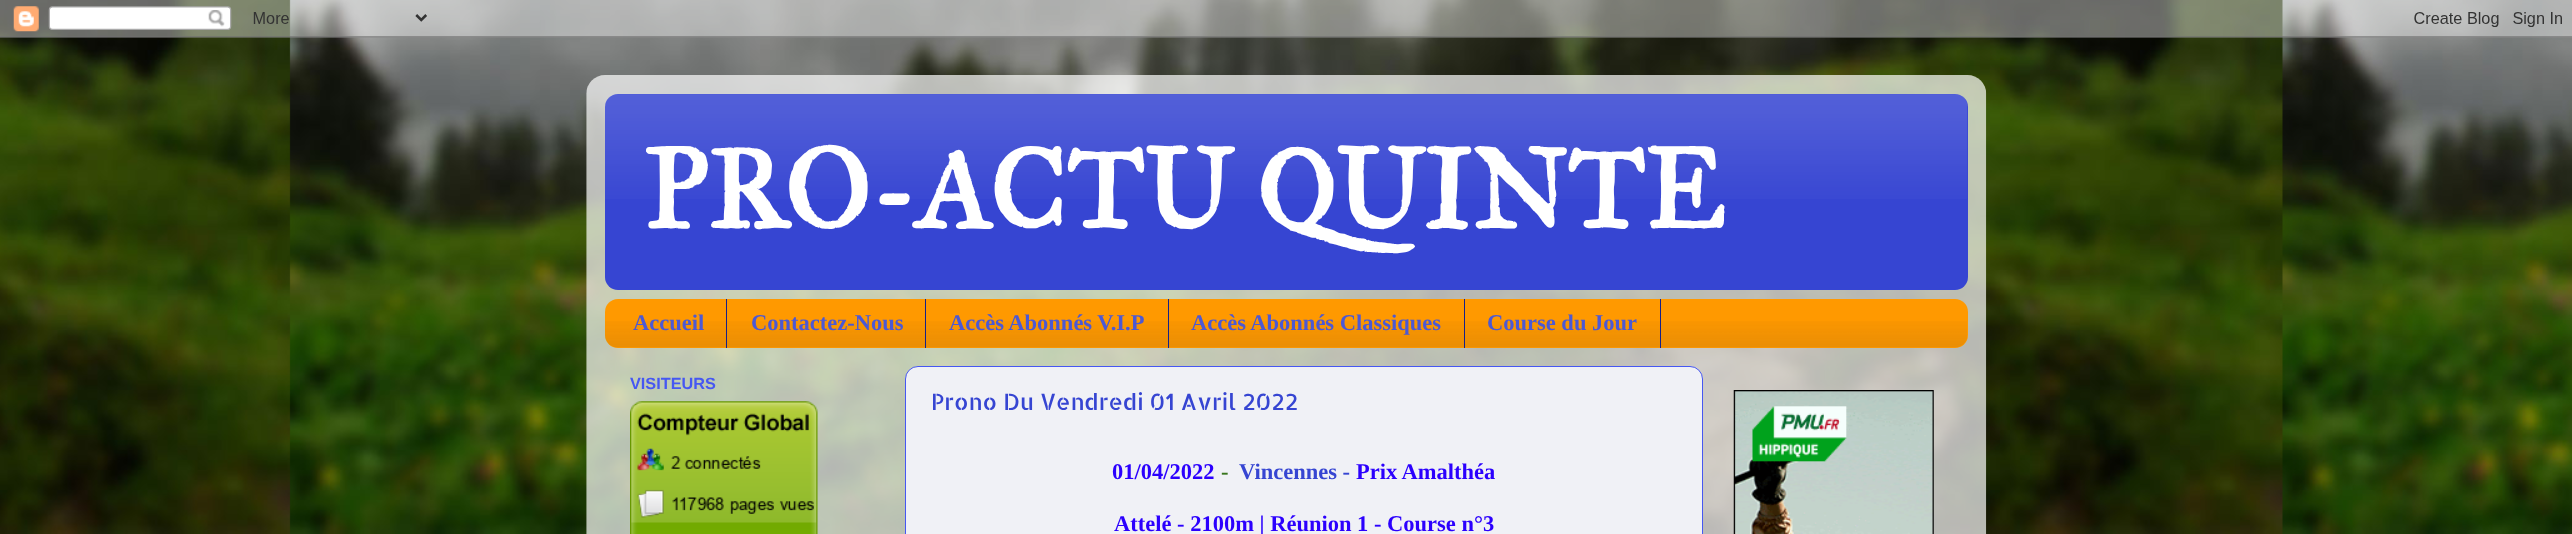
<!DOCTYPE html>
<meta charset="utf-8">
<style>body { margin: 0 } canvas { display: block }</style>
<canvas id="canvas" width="2572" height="534"></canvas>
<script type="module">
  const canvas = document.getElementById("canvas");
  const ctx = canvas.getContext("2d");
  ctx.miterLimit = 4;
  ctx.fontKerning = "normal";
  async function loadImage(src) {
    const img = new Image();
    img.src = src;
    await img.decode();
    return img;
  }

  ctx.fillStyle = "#ffffff";
  ctx.fillRect(0, 0, 2572, 534);
  ctx.drawImage(await loadImage("img1.png"), 0, 0, 2572, 534);
  ctx.drawImage(await loadImage("img2.png"), 0, 0, 2572, 38);
  ctx.drawImage(await loadImage("img3.png"), 586, 75, 1401, 459);
  ctx.fillStyle = "#3645d2";
  ctx.beginPath();
  ctx.roundRect(605, 94, 1363, 196, 13);
  ctx.fill();
  ctx.drawImage(await loadImage("img4.png"), 605, 94, 1363, 105);
  ctx.font = "bold 112.5px IM FELL Great Primer SC";
  ctx.fillStyle = "#ffffff";
  ctx.fillText("PRO-ACTU QUINTE", 643, 228);
  ctx.fillStyle = "#ff9900";
  ctx.beginPath();
  ctx.roundRect(605, 299, 1363, 49, 13);
  ctx.fill();
  ctx.drawImage(await loadImage("img5.png"), 605, 321, 1362, 27);
  ctx.fillStyle = "#15218a";
  ctx.fillRect(726, 299, 1, 49);
  ctx.font = "bold 22.5px Liberation Serif";
  ctx.fillStyle = "#4c59d4";
  ctx.fillText("Accueil", 633, 330);
  ctx.fillStyle = "#15218a";
  ctx.fillRect(925, 299, 1, 49);
  ctx.fillStyle = "#4c59d4";
  ctx.fillText("Contactez-Nous", 751, 330);
  ctx.fillStyle = "#15218a";
  ctx.fillRect(1168, 299, 1, 49);
  ctx.fillStyle = "#4c59d4";
  ctx.fillText("Accès Abonnés V.I.P", 949, 330);
  ctx.fillStyle = "#15218a";
  ctx.fillRect(1464, 299, 1, 49);
  ctx.fillStyle = "#4c59d4";
  ctx.fillText("Accès Abonnés Classiques", 1191, 330);
  ctx.fillStyle = "#15218a";
  ctx.fillRect(1660, 299, 1, 49);
  ctx.fillStyle = "#4c59d4";
  ctx.fillText("Course du Jour", 1487, 330);
  ctx.font = "bold 16.25px Liberation Sans";
  ctx.fillStyle = "#4657f2";
  ctx.fillText("VISITEURS", 630, 389);
  ctx.drawImage(await loadImage("img6.png"), 630, 401, 188, 133);
  ctx.fillStyle = "#f0f1f6";
  ctx.beginPath();
  ctx.roundRect(905.5, 366.5, 797, 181, 12.5);
  ctx.fill();
  ctx.strokeStyle = "#4657f2";
  ctx.stroke();
  ctx.font = "22.5px Allerta Stencil";
  ctx.fillStyle = "#3645d2";
  ctx.fillText("Prono Du Vendredi 01 Avril 2022", 931, 410);
  ctx.font = "bold 22.5px Liberation Serif";
  ctx.fillStyle = "#2b00fe";
  ctx.fillText("01/04/2022", 1112, 479);
  ctx.fillStyle = "#38761d";
  ctx.fillText("-", 1221, 479);
  ctx.fillStyle = "#3645d2";
  ctx.fillText("Vincennes -", 1239, 479);
  ctx.fillStyle = "#2b00fe";
  ctx.fillText("Prix Amalthéa", 1356, 479);
  ctx.fillText("Attelé - 2100m | Réunion 1 - Course n°3", 1114, 531);
  ctx.drawImage(await loadImage("img7.png"), 1733, 390, 201, 144);
</script>
